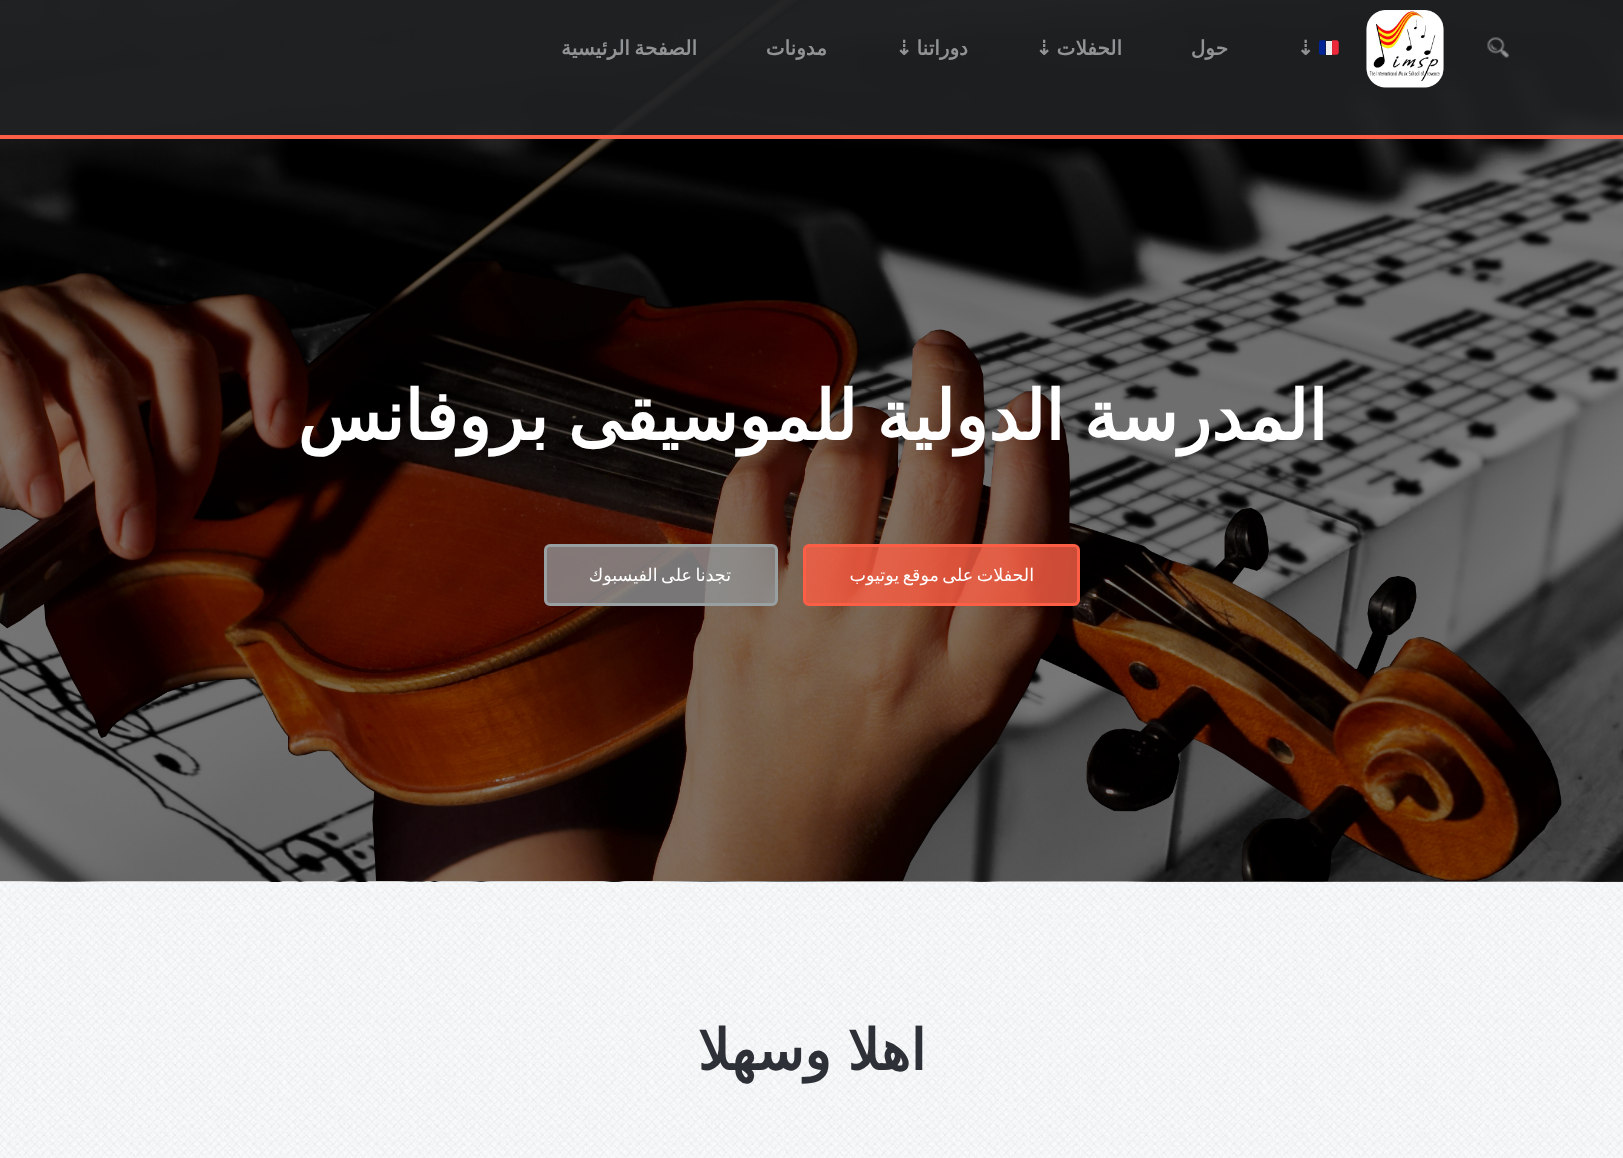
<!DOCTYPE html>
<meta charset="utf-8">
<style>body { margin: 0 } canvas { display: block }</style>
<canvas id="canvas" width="1623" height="1158"></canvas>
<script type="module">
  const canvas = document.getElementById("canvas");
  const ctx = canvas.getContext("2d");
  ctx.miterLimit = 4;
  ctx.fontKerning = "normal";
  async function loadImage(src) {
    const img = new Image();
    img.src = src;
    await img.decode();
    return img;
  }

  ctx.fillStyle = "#ffffff";
  ctx.fillRect(0, 0, 1623, 1158);
  ctx.drawImage(await loadImage("img4.png"), 0, 0, 1623, 882);
  ctx.drawImage(await loadImage("img5.png"), 0, 0, 1562, 881);
  ctx.fillStyle = "rgba(0, 0, 0, 0.5)";
  ctx.fillRect(0, 0, 1623, 881);
  ctx.fillStyle = "rgba(31, 33, 36, 0.9)";
  ctx.fillRect(0, 0, 1623, 135);
  ctx.fillStyle = "#fc5f45";
  ctx.fillRect(0, 135, 1623, 4);
  ctx.drawImage(await loadImage("img1.png"), 1487, 37, 22, 21);
  ctx.drawImage(await loadImage("img2.png"), 1366, 10, 78, 78);
  ctx.drawImage(await loadImage("img3.png"), 1319, 40, 20, 15);
  ctx.font = "bold 20px DejaVu Sans";
  ctx.fillStyle = "#919495";
  ctx.fillText("⇣", 1297, 55);
  ctx.direction = "rtl";
  ctx.fillText("حول", 1228, 55);
  ctx.wordSpacing = "-2px";
  ctx.fillText("الحفلات ⇣", 1122, 55);
  ctx.fillText("دوراتنا ⇣", 968, 55);
  ctx.wordSpacing = "0px";
  ctx.fillText("مدونات", 827, 55);
  ctx.wordSpacing = "-2px";
  ctx.fillText("الصفحة الرئيسية", 697, 55);
  ctx.wordSpacing = "-2.5px";
  ctx.font = "bold 68.75px DejaVu Sans";
  ctx.fillStyle = "#ffffff";
  ctx.fillText("المدرسة الدولية للموسيقى بروفانس", 1327, 440);
  ctx.fillStyle = "rgba(252, 95, 69, 0.8)";
  ctx.beginPath();
  ctx.roundRect(804.5, 545.5, 274, 59, 4.5);
  ctx.fill();
  ctx.strokeStyle = "#fc5f45";
  ctx.lineWidth = 3;
  ctx.stroke();
  ctx.wordSpacing = "-2px";
  ctx.font = "17.5px DejaVu Sans";
  ctx.fillStyle = "#ffffff";
  ctx.fillText("الحفلات على موقع يوتيوب", 1034, 581);
  ctx.fillStyle = "rgba(145, 148, 149, 0.8)";
  ctx.beginPath();
  ctx.roundRect(545.5, 545.5, 231, 59, 4.5);
  ctx.fill();
  ctx.strokeStyle = "#98a0a2";
  ctx.stroke();
  ctx.fillStyle = "#ffffff";
  ctx.fillText("تجدنا على الفيسبوك", 731, 581);
  ctx.drawImage(await loadImage("img6.png"), 0, 882, 1623, 276);
  ctx.font = "bold 56.25px DejaVu Sans";
  ctx.fillStyle = "#2e3037";
  ctx.fillText("اهلا وسهلا", 926, 1070);
</script>
